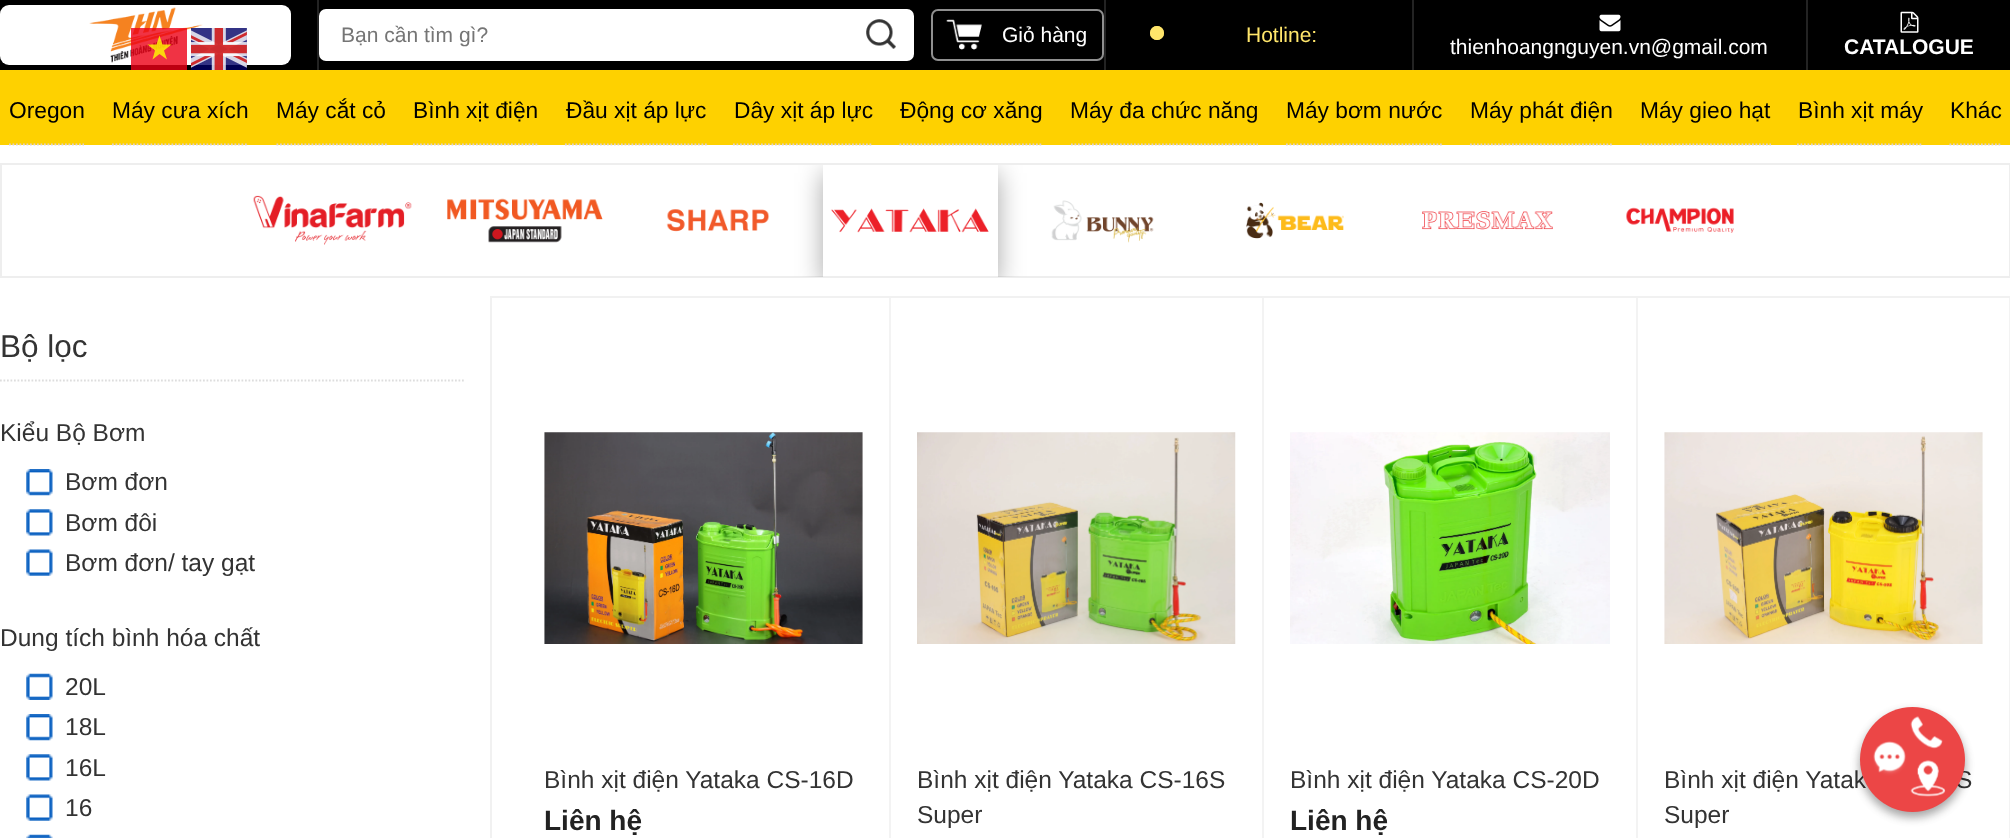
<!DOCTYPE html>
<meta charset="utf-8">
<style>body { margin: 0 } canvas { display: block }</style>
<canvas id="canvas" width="2010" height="838"></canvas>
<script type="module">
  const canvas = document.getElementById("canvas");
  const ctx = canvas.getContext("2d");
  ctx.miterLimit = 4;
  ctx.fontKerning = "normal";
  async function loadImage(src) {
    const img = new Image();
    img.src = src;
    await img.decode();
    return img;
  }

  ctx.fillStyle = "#ffffff";
  ctx.fillRect(0, 0, 2010, 838);
  ctx.fillStyle = "#000000";
  ctx.fillRect(0, 0, 2010, 70);
  ctx.fillStyle = "#ffffff";
  ctx.beginPath();
  ctx.roundRect(0, 5, 291, 60, 9);
  ctx.fill();
  ctx.drawImage(await loadImage("img2.png"), 89, 7, 114, 56);
  ctx.fillStyle = "rgba(236, 0, 21, 0.8)";
  ctx.fillRect(131, 28, 56, 42);
  ctx.drawImage(await loadImage("img1.png"), 191, 28, 56, 42);
  ctx.fillStyle = "rgba(255, 255, 0, 0.8)";
  ctx.beginPath();
  ctx.moveTo(167, 59.5);
  ctx.lineTo(159.5, 54);
  ctx.lineTo(152.5, 59.5);
  ctx.lineTo(155, 50.5);
  ctx.lineTo(147.5, 44.5);
  ctx.lineTo(156.5, 44.5);
  ctx.lineTo(159.5, 35.5);
  ctx.lineTo(162.5, 44.5);
  ctx.lineTo(171.5, 44.5);
  ctx.lineTo(164, 50.5);
  ctx.closePath();
  ctx.fill("evenodd");
  ctx.fillStyle = "#232323";
  ctx.fillRect(317, 0, 2, 70);
  ctx.fillStyle = "#ffffff";
  ctx.beginPath();
  ctx.roundRect(319, 9, 595, 52, 7);
  ctx.fill();
  ctx.font = "21px Liberation Sans";
  ctx.fillStyle = "#757575";
  ctx.fillText("Bạn cần tìm gì?", 341, 42);
  ctx.drawImage(await loadImage("img3.png"), 866, 19, 30, 30);
  ctx.beginPath();
  ctx.roundRect(932, 10, 171, 50, 6);
  ctx.strokeStyle = "#8f8f8f";
  ctx.lineWidth = 2;
  ctx.stroke();
  ctx.drawImage(await loadImage("img4.png"), 946, 19, 36, 31);
  ctx.fillStyle = "#ffffff";
  ctx.fillText("Giỏ hàng", 1002, 42);
  ctx.fillStyle = "#232323";
  ctx.fillRect(1104, 0, 2, 70);
  ctx.fillStyle = "#ffe66b";
  ctx.beginPath();
  ctx.arc(1157, 33, 7, 0, Math.PI * 2);
  ctx.fill();
  ctx.fillStyle = "rgba(255, 230, 107, 0.2)";
  ctx.beginPath();
  ctx.arc(1157, 33, 6, 0, Math.PI * 2);
  ctx.fill();
  ctx.strokeStyle = "#ffe66b";
  ctx.stroke();
  ctx.fillStyle = "#ffe66b";
  ctx.fillText("Hotline:", 1246, 42);
  ctx.fillStyle = "#232323";
  ctx.fillRect(1412, 0, 2, 70);
  ctx.drawImage(await loadImage("img5.png"), 1599, 14, 22, 18);
  ctx.fillStyle = "#ffffff";
  ctx.fillText("thienhoangnguyen.vn@gmail.com", 1450, 54);
  ctx.fillStyle = "#232323";
  ctx.fillRect(1806, 0, 2, 70);
  ctx.drawImage(await loadImage("img6.png"), 1900, 11, 19, 22);
  ctx.font = "bold 21px Liberation Sans";
  ctx.fillStyle = "#ffffff";
  ctx.fillText("CATALOGUE", 1844, 54);
  ctx.fillStyle = "#fed100";
  ctx.fillRect(0, 70, 2010, 75);
  ctx.beginPath();
  ctx.moveTo(9, 144.5);
  ctx.lineTo(84, 144.5);
  ctx.strokeStyle = "#ded1d1";
  ctx.lineWidth = 1.8;
  ctx.setLineDash([1.75, 1.75]);
  ctx.stroke();
  ctx.font = "22.75px Liberation Sans";
  ctx.fillStyle = "#000000";
  ctx.fillText("Oregon", 9, 118);
  ctx.beginPath();
  ctx.moveTo(112, 144.5);
  ctx.lineTo(248.5, 144.5);
  ctx.stroke();
  ctx.fillText("Máy cưa xích", 112, 118);
  ctx.beginPath();
  ctx.moveTo(276.5, 144.5);
  ctx.lineTo(387, 144.5);
  ctx.stroke();
  ctx.fillText("Máy cắt cỏ", 276, 118);
  ctx.beginPath();
  ctx.moveTo(413, 144.5);
  ctx.lineTo(539, 144.5);
  ctx.stroke();
  ctx.fillText("Bình xịt điện", 413, 118);
  ctx.beginPath();
  ctx.moveTo(565, 144.5);
  ctx.lineTo(707, 144.5);
  ctx.stroke();
  ctx.fillText("Đầu xịt áp lực", 566, 118);
  ctx.beginPath();
  ctx.moveTo(733, 144.5);
  ctx.lineTo(873, 144.5);
  ctx.stroke();
  ctx.fillText("Dây xịt áp lực", 734, 118);
  ctx.beginPath();
  ctx.moveTo(899.5, 144.5);
  ctx.lineTo(1043, 144.5);
  ctx.stroke();
  ctx.fillText("Động cơ xăng", 900, 118);
  ctx.beginPath();
  ctx.moveTo(1071, 144.5);
  ctx.lineTo(1258, 144.5);
  ctx.stroke();
  ctx.fillText("Máy đa chức năng", 1070, 118);
  ctx.beginPath();
  ctx.moveTo(1286, 144.5);
  ctx.lineTo(1442, 144.5);
  ctx.stroke();
  ctx.fillText("Máy bơm nước", 1286, 118);
  ctx.beginPath();
  ctx.moveTo(1470, 144.5);
  ctx.lineTo(1612, 144.5);
  ctx.stroke();
  ctx.fillText("Máy phát điện", 1470, 118);
  ctx.beginPath();
  ctx.moveTo(1640, 144.5);
  ctx.lineTo(1771, 144.5);
  ctx.stroke();
  ctx.fillText("Máy gieo hạt", 1640, 118);
  ctx.beginPath();
  ctx.moveTo(1797, 144.5);
  ctx.lineTo(1923, 144.5);
  ctx.stroke();
  ctx.fillText("Bình xịt máy", 1798, 118);
  ctx.beginPath();
  ctx.moveTo(1949.5, 144.5);
  ctx.lineTo(2002, 144.5);
  ctx.stroke();
  ctx.fillText("Khác", 1950, 118);
  ctx.strokeStyle = "#eeeeee";
  ctx.lineWidth = 2;
  ctx.setLineDash([]);
  ctx.strokeRect(1, 164, 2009, 113);
  ctx.drawImage(await loadImage("img7.png"), 253, 195, 159, 50);
  ctx.drawImage(await loadImage("img8.png"), 447, 198, 156, 45);
  ctx.drawImage(await loadImage("img9.png"), 666, 209, 104, 23);
  ctx.save();
  ctx.beginPath();
  ctx.rect(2, 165, 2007, 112);
  ctx.clip();
  ctx.beginPath();
  ctx.moveTo(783, 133);
  ctx.lineTo(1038, 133);
  ctx.lineTo(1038, 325);
  ctx.lineTo(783, 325);
  ctx.closePath();
  ctx.moveTo(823, 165);
  ctx.lineTo(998, 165);
  ctx.lineTo(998, 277);
  ctx.lineTo(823, 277);
  ctx.closePath();
  ctx.clip("evenodd");
  ctx.fillStyle = "rgba(0, 0, 0, 0.35)";
  ctx.filter = "blur(13px)";
  ctx.beginPath();
  ctx.rect(823, 173, 175, 112);
  ctx.fill();
  ctx.filter = "none";
  ctx.restore();
  ctx.drawImage(await loadImage("img10.png"), 831, 208, 158, 25);
  ctx.drawImage(await loadImage("img11.png"), 1051, 200, 103, 43);
  ctx.drawImage(await loadImage("img12.png"), 1246, 202, 98, 37);
  ctx.drawImage(await loadImage("img13.png"), 1422, 211, 131, 19);
  ctx.drawImage(await loadImage("img14.png"), 1626, 207, 108, 26);
  ctx.beginPath();
  ctx.moveTo(0, 380.5);
  ctx.lineTo(464, 380.5);
  ctx.strokeStyle = "#dddddd";
  ctx.lineWidth = 1.8;
  ctx.setLineDash([1.75, 1.75]);
  ctx.stroke();
  ctx.font = "31.5px Liberation Sans";
  ctx.fillStyle = "#333333";
  ctx.fillText("Bộ lọc", 0, 357);
  ctx.font = "24.5px Liberation Sans";
  ctx.fillText("Kiểu Bộ Bơm", 0, 441);
  ctx.drawImage(await loadImage("img15.png"), 26, 469, 27, 27);
  ctx.fillText("Bơm đơn", 65, 490);
  ctx.drawImage(await loadImage("img16.png"), 26, 509, 27, 27);
  ctx.fillText("Bơm đôi", 65, 531);
  ctx.drawImage(await loadImage("img17.png"), 26, 549, 27, 27);
  ctx.fillText("Bơm đơn/ tay gạt", 65, 571);
  ctx.fillText("Dung tích bình hóa chất", 0, 646);
  ctx.drawImage(await loadImage("img18.png"), 26, 673, 27, 27);
  ctx.fillText("20L", 65, 695);
  ctx.drawImage(await loadImage("img15.png"), 26, 714, 27, 27);
  ctx.fillText("18L", 65, 735);
  ctx.drawImage(await loadImage("img16.png"), 26, 754, 27, 27);
  ctx.fillText("16L", 65, 776);
  ctx.drawImage(await loadImage("img17.png"), 26, 794, 27, 27);
  ctx.fillText("16", 65, 816);
  ctx.drawImage(await loadImage("img19.png"), 26, 834, 27, 4);
  ctx.fillStyle = "#f1f1f1";
  ctx.fillRect(490, 296, 1520, 2);
  ctx.fillRect(490, 296, 2, 542);
  ctx.fillStyle = "#f3f3f3";
  ctx.fillRect(889, 298, 2, 540);
  ctx.drawImage(await loadImage("img20.png"), 544, 432, 319, 212);
  ctx.fillStyle = "#333333";
  ctx.fillText("Bình xịt điện Yataka CS-16D", 544, 788);
  ctx.font = "bold 28px Liberation Sans";
  ctx.fillStyle = "#222222";
  ctx.fillText("Liên hệ", 544, 830);
  ctx.fillStyle = "#f3f3f3";
  ctx.fillRect(1262, 298, 2, 540);
  ctx.drawImage(await loadImage("img21.png"), 917, 432, 319, 212);
  ctx.font = "24.5px Liberation Sans";
  ctx.fillStyle = "#333333";
  ctx.fillText("Bình xịt điện Yataka CS-16S", 917, 788);
  ctx.fillText("Super", 917, 823);
  ctx.fillStyle = "#f3f3f3";
  ctx.fillRect(1636, 298, 2, 540);
  ctx.drawImage(await loadImage("img22.png"), 1290, 432, 320, 212);
  ctx.fillStyle = "#333333";
  ctx.fillText("Bình xịt điện Yataka CS-20D", 1290, 788);
  ctx.font = "bold 28px Liberation Sans";
  ctx.fillStyle = "#222222";
  ctx.fillText("Liên hệ", 1290, 830);
  ctx.fillStyle = "#f3f3f3";
  ctx.fillRect(2009, 298, 1, 540);
  ctx.drawImage(await loadImage("img23.png"), 1664, 432, 319, 212);
  ctx.font = "24.5px Liberation Sans";
  ctx.fillStyle = "#333333";
  ctx.fillText("Bình xịt điện Yatak", 1664, 788);
  ctx.fillText("S", 1956, 788);
  ctx.fillText("Super", 1664, 823);
  ctx.fillStyle = "rgba(0, 0, 0, 0.23)";
  ctx.filter = "blur(5px)";
  ctx.beginPath();
  ctx.roundRect(1860, 712, 105, 105, 52.5);
  ctx.fill();
  ctx.filter = "none";
  ctx.fillStyle = "rgba(0, 0, 0, 0.16)";
  ctx.filter = "blur(5px)";
  ctx.beginPath();
  ctx.roundRect(1860, 712, 105, 105, 52.5);
  ctx.fill();
  ctx.filter = "none";
  ctx.fillStyle = "#ec4646";
  ctx.beginPath();
  ctx.arc(1912.5, 759.5, 52.5, 0, Math.PI * 2);
  ctx.fill();
  ctx.drawImage(await loadImage("img24.png"), 1873, 716, 73, 81);
</script>
